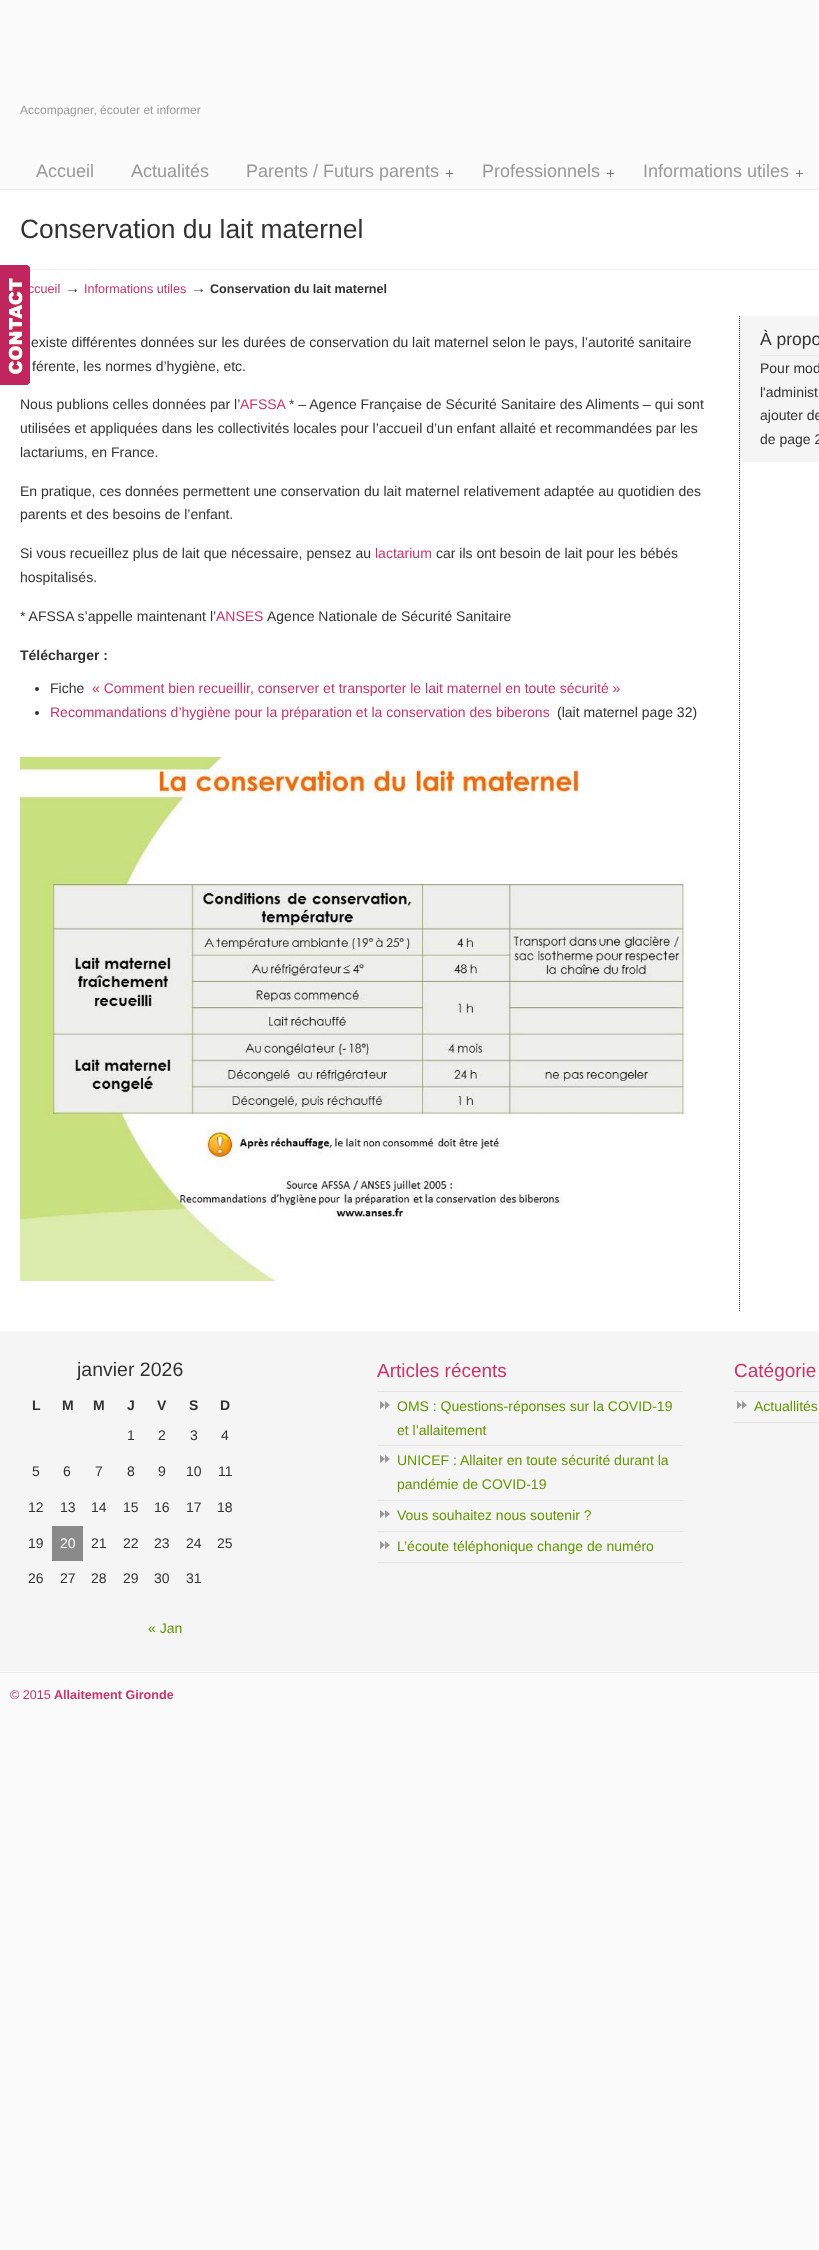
<!DOCTYPE html>
<meta charset="utf-8">
<style>body { margin: 0 } canvas { display: block }</style>
<canvas id="canvas" width="819" height="2250"></canvas>
<script type="module">
  const canvas = document.getElementById("canvas");
  const ctx = canvas.getContext("2d");
  ctx.miterLimit = 4;
  ctx.fontKerning = "normal";
  async function loadImage(src) {
    const img = new Image();
    img.src = src;
    await img.decode();
    return img;
  }

  ctx.fillStyle = "#fbfbfb";
  ctx.fillRect(0, 0, 819, 2250);
  ctx.font = "12px Liberation Sans";
  ctx.fillStyle = "#999999";
  ctx.fillText("Accompagner, écouter et informer", 20, 114);
  ctx.fillStyle = "#e9e9e9";
  ctx.fillRect(0, 189, 819, 1);
  ctx.font = "18px Liberation Sans";
  ctx.fillStyle = "#999999";
  ctx.fillText("Accueil", 36, 177);
  ctx.fillText("Actualités", 131, 177);
  ctx.fillText("Parents / Futurs parents", 246, 177);
  ctx.drawImage(await loadImage("img1.png"), 446, 170, 7, 7);
  ctx.fillText("Professionnels", 482, 177);
  ctx.drawImage(await loadImage("img1.png"), 607, 170, 7, 7);
  ctx.fillText("Informations utiles", 643, 177);
  ctx.drawImage(await loadImage("img1.png"), 796, 170, 7, 7);
  ctx.fillStyle = "#ffffff";
  ctx.fillRect(0, 190, 819, 1141);
  ctx.font = "26.4px Liberation Sans";
  ctx.fillStyle = "#333333";
  ctx.fillText("Conservation du lait maternel", 20, 238);
  ctx.drawImage(await loadImage("img2.png"), 30, 269, 789, 1);
  ctx.font = "12.6px Liberation Sans";
  ctx.fillStyle = "#cc3366";
  ctx.fillText("ccueil", 28, 293);
  ctx.font = "15px Liberation Sans";
  ctx.fillStyle = "#333333";
  ctx.fillText("→", 65, 293);
  ctx.font = "12.6px Liberation Sans";
  ctx.fillStyle = "#cc3366";
  ctx.fillText("Informations utiles", 84, 293);
  ctx.font = "15px Liberation Sans";
  ctx.fillStyle = "#333333";
  ctx.fillText("→", 191, 293);
  ctx.font = "bold 12.6px Liberation Sans";
  ctx.fillText("Conservation du lait maternel", 210, 293);
  ctx.beginPath();
  ctx.moveTo(739.5, 316);
  ctx.lineTo(739.5, 1311);
  ctx.strokeStyle = "#333333";
  ctx.setLineDash([1, 1]);
  ctx.stroke();
  ctx.font = "14px Liberation Sans";
  ctx.fillText("existe différentes données sur les durées de conservation du lait maternel selon le pays, l’autorité sanitaire", 31, 347);
  ctx.fillText("férente, les normes d’hygiène, etc.", 32, 371);
  ctx.fillText("Nous publions celles données par l’", 20, 409);
  ctx.fillStyle = "#cc3366";
  ctx.fillText("AFSSA", 240, 409);
  ctx.fillStyle = "#333333";
  ctx.fillText("* – Agence Française de Sécurité Sanitaire des Aliments – qui sont", 289, 409);
  ctx.fillText("utilisées et appliquées dans les collectivités locales pour l’accueil d’un enfant allaité et recommandées par les", 20, 433);
  ctx.fillText("lactariums, en France.", 20, 457);
  ctx.fillText("En pratique, ces données permettent une conservation du lait maternel relativement adaptée au quotidien des", 20, 496);
  ctx.fillText("parents et des besoins de l’enfant.", 20, 519);
  ctx.fillText("Si vous recueillez plus de lait que nécessaire, pensez au", 20, 558);
  ctx.fillStyle = "#cc3366";
  ctx.fillText("lactarium", 375, 558);
  ctx.fillStyle = "#333333";
  ctx.fillText("car ils ont besoin de lait pour les bébés", 436, 558);
  ctx.fillText("hospitalisés.", 20, 582);
  ctx.fillText("* AFSSA s’appelle maintenant l’", 20, 621);
  ctx.fillStyle = "#cc3366";
  ctx.fillText("ANSES", 216, 621);
  ctx.fillStyle = "#333333";
  ctx.fillText("Agence Nationale de Sécurité Sanitaire", 267, 621);
  ctx.font = "bold 14px Liberation Sans";
  ctx.fillText("Télécharger :", 20, 660);
  ctx.beginPath();
  ctx.arc(37, 689, 2, 0, Math.PI * 2);
  ctx.fill();
  ctx.font = "14px Liberation Sans";
  ctx.fillText("Fiche", 50, 693);
  ctx.fillStyle = "#cc3366";
  ctx.fillText("« Comment bien recueillir, conserver et transporter le lait maternel en toute sécurité »", 92, 693);
  ctx.fillStyle = "#333333";
  ctx.beginPath();
  ctx.arc(37, 713, 2, 0, Math.PI * 2);
  ctx.fill();
  ctx.fillStyle = "#cc3366";
  ctx.fillText("Recommandations d’hygiène pour la préparation et la conservation des biberons", 50, 717);
  ctx.fillStyle = "#333333";
  ctx.fillText("(lait maternel page 32)", 557, 717);
  ctx.drawImage(await loadImage("img3.png"), 20, 757, 666, 524);
  ctx.fillStyle = "#f5f5f5";
  ctx.fillRect(740, 316, 79, 146);
  ctx.fillStyle = "#e4e4e4";
  ctx.fillRect(760, 355, 59, 1);
  ctx.font = "17.5px Liberation Sans";
  ctx.fillStyle = "#333333";
  ctx.fillText("À propo", 760, 345);
  ctx.font = "14px Liberation Sans";
  ctx.fillText("Pour mod", 760, 373);
  ctx.fillText("l'administ", 760, 397);
  ctx.fillText("ajouter de", 760, 420);
  ctx.fillText("de page 2", 760, 444);
  ctx.fillStyle = "#f5f5f5";
  ctx.fillRect(0, 1331, 819, 340);
  ctx.font = "19.5px Liberation Sans";
  ctx.fillStyle = "#333333";
  ctx.fillText("janvier 2026", 77, 1376);
  ctx.font = "bold 14px Liberation Sans";
  ctx.fillText("L", 32, 1410);
  ctx.fillText("M", 62, 1410);
  ctx.fillText("M", 93, 1410);
  ctx.fillText("J", 127, 1410);
  ctx.fillText("V", 157, 1410);
  ctx.fillText("S", 189, 1410);
  ctx.fillText("D", 220, 1410);
  ctx.font = "14px Liberation Sans";
  ctx.fillText("1", 127, 1440);
  ctx.fillText("2", 158, 1440);
  ctx.fillText("3", 190, 1440);
  ctx.fillText("4", 221, 1440);
  ctx.fillText("5", 32, 1476);
  ctx.fillText("6", 63, 1476);
  ctx.fillText("7", 95, 1476);
  ctx.fillText("8", 127, 1476);
  ctx.fillText("9", 158, 1476);
  ctx.fillText("10", 186, 1476);
  ctx.fillText("11", 218, 1476);
  ctx.fillText("12", 28, 1512);
  ctx.fillText("13", 60, 1512);
  ctx.fillText("14", 91, 1512);
  ctx.fillText("15", 123, 1512);
  ctx.fillText("16", 154, 1512);
  ctx.fillText("17", 186, 1512);
  ctx.fillText("18", 217, 1512);
  ctx.fillText("19", 28, 1548);
  ctx.fillStyle = "#8a8a8a";
  ctx.fillRect(52, 1526, 31, 35);
  ctx.fillStyle = "#ffffff";
  ctx.fillText("20", 60, 1548);
  ctx.fillStyle = "#333333";
  ctx.fillText("21", 91, 1548);
  ctx.fillText("22", 123, 1548);
  ctx.fillText("23", 154, 1548);
  ctx.fillText("24", 186, 1548);
  ctx.fillText("25", 217, 1548);
  ctx.fillText("26", 28, 1583);
  ctx.fillText("27", 60, 1583);
  ctx.fillText("28", 91, 1583);
  ctx.fillText("29", 123, 1583);
  ctx.fillText("30", 154, 1583);
  ctx.fillText("31", 186, 1583);
  ctx.fillStyle = "#659602";
  ctx.fillText("« Jan", 148, 1633);
  ctx.fillStyle = "#e4e4e4";
  ctx.fillRect(377, 1391, 306, 1);
  ctx.font = "19px Liberation Sans";
  ctx.fillStyle = "#cc3366";
  ctx.fillText("Articles récents", 377, 1377);
  ctx.drawImage(await loadImage("img4.png"), 380, 1401, 10, 8);
  ctx.fillStyle = "#e4e4e4";
  ctx.fillRect(377, 1445, 306, 1);
  ctx.font = "14px Liberation Sans";
  ctx.fillStyle = "#659602";
  ctx.fillText("OMS : Questions-réponses sur la COVID-19", 397, 1411);
  ctx.fillText("et l’allaitement", 397, 1435);
  ctx.drawImage(await loadImage("img4.png"), 380, 1455, 10, 8);
  ctx.fillStyle = "#e4e4e4";
  ctx.fillRect(377, 1500, 306, 1);
  ctx.fillStyle = "#659602";
  ctx.fillText("UNICEF : Allaiter en toute sécurité durant la", 397, 1465);
  ctx.fillText("pandémie de COVID-19", 397, 1489);
  ctx.drawImage(await loadImage("img4.png"), 380, 1510, 10, 8);
  ctx.fillStyle = "#e4e4e4";
  ctx.fillRect(377, 1531, 306, 1);
  ctx.fillStyle = "#659602";
  ctx.fillText("Vous souhaitez nous soutenir ?", 397, 1520);
  ctx.drawImage(await loadImage("img4.png"), 380, 1541, 10, 8);
  ctx.fillStyle = "#e4e4e4";
  ctx.fillRect(377, 1562, 306, 1);
  ctx.fillStyle = "#659602";
  ctx.fillText("L’écoute téléphonique change de numéro", 397, 1551);
  ctx.fillStyle = "#e4e4e4";
  ctx.fillRect(734, 1391, 85, 1);
  ctx.font = "19px Liberation Sans";
  ctx.fillStyle = "#cc3366";
  ctx.fillText("Catégorie", 734, 1377);
  ctx.drawImage(await loadImage("img4.png"), 737, 1401, 10, 8);
  ctx.fillStyle = "#e4e4e4";
  ctx.fillRect(734, 1422, 85, 1);
  ctx.font = "14px Liberation Sans";
  ctx.fillStyle = "#659602";
  ctx.fillText("Actuallités", 754, 1411);
  ctx.drawImage(await loadImage("img5.png"), 0, 1672, 819, 1);
  ctx.font = "12.6px Liberation Sans";
  ctx.fillStyle = "#cc3366";
  ctx.fillText("© 2015", 10, 1699);
  ctx.font = "bold 12.6px Liberation Sans";
  ctx.fillText("Allaitement Gironde", 54, 1699);
  ctx.drawImage(await loadImage("img6.png"), 0, 265, 30, 120);
</script>
